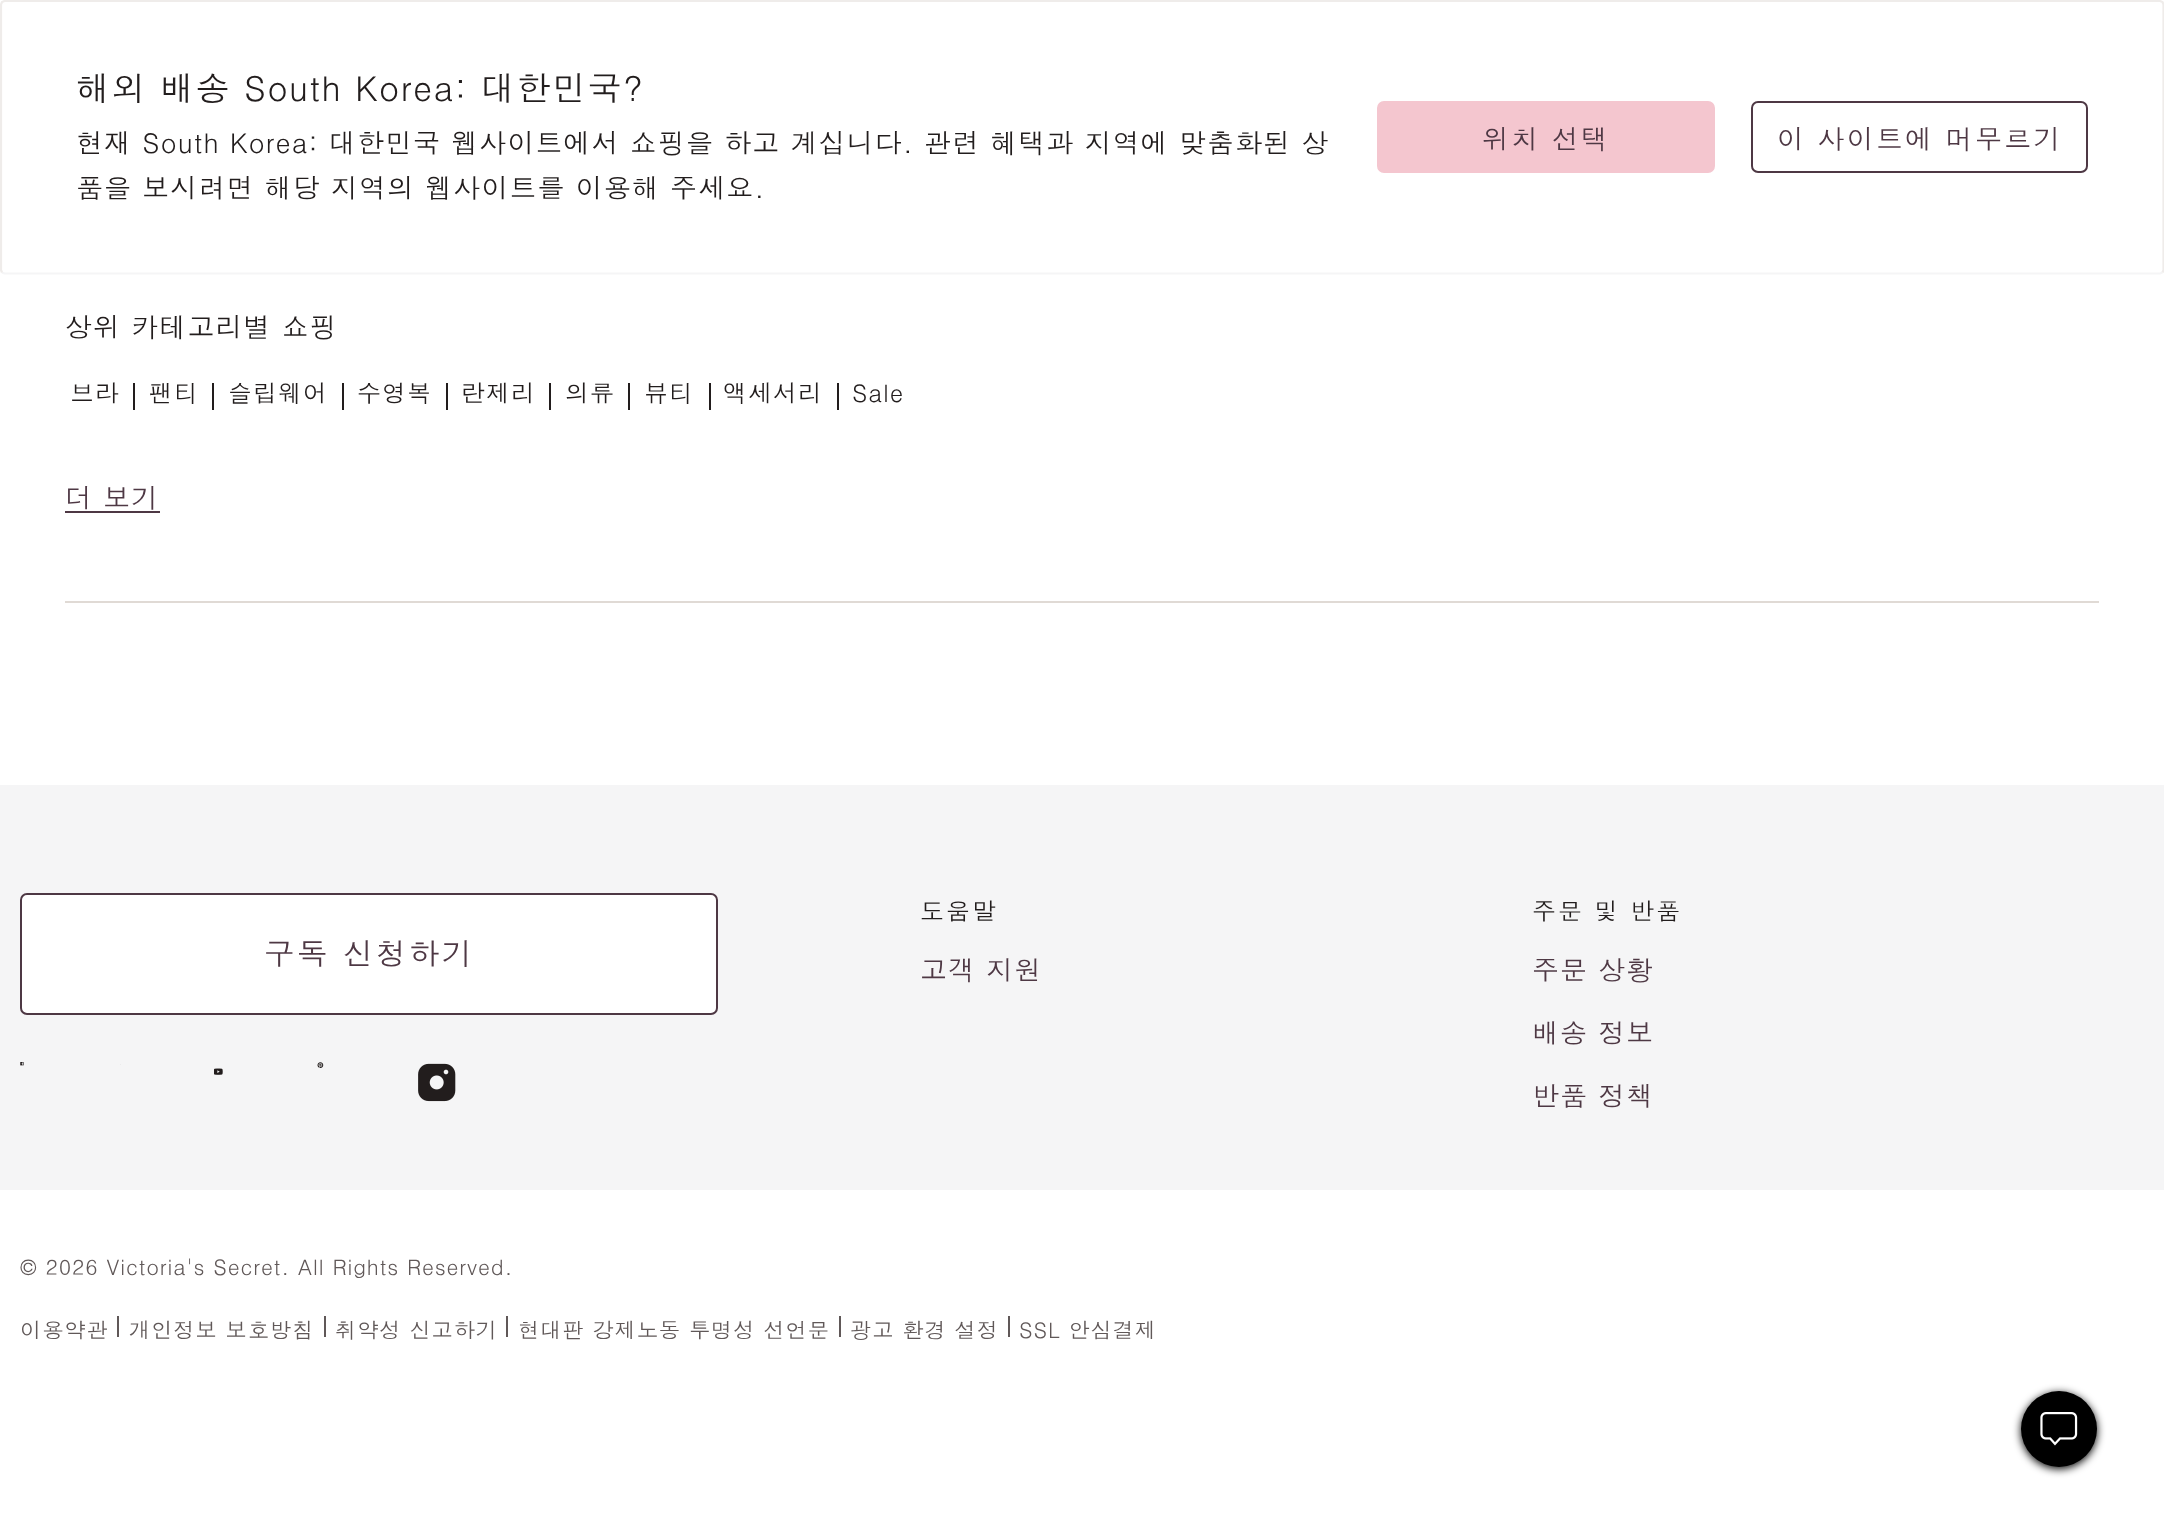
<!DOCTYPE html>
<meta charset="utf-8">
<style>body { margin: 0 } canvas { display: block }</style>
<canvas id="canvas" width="2164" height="1534"></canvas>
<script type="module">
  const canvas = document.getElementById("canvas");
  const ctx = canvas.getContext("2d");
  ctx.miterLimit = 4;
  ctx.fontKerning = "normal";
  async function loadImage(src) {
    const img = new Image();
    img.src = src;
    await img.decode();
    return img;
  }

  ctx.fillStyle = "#ffffff";
  ctx.fillRect(0, 0, 2164, 1534);
  ctx.beginPath();
  ctx.moveTo(2162.5, 272.5);
  ctx.lineTo(2160, 273.5);
  ctx.lineTo(4.5, 273.5);
  ctx.lineTo(2, 272.5);
  ctx.strokeStyle = "#f5f5f6";
  ctx.lineWidth = 2.2;
  ctx.stroke();
  ctx.beginPath();
  ctx.moveTo(2, 272.5);
  ctx.lineTo(1, 270);
  ctx.lineTo(1, 4.5);
  ctx.lineTo(2, 2);
  ctx.lineTo(4.5, 1);
  ctx.lineTo(2160, 1);
  ctx.lineTo(2162.5, 2);
  ctx.lineTo(2163.5, 4.5);
  ctx.lineTo(2163.5, 270);
  ctx.lineTo(2162.5, 272.5);
  ctx.strokeStyle = "#efecea";
  ctx.stroke();
  ctx.letterSpacing = "1.4px";
  ctx.font = "34.2px Dotum";
  ctx.fillStyle = "#221d1d";
  ctx.fillText("해외 배송 South Korea: 대한민국?", 76, 101);
  ctx.letterSpacing = "1.08px";
  ctx.font = "27px Dotum";
  ctx.fillText("현재 South Korea: 대한민국 웹사이트에서 쇼핑을 하고 계십니다. 관련 혜택과 지역에 맞춤화된 상", 76, 153);
  ctx.fillText("품을 보시려면 해당 지역의 웹사이트를 이용해 주세요.", 76, 198);
  ctx.fillStyle = "#f4c6cf";
  ctx.beginPath();
  ctx.roundRect(1378, 102, 336, 70, 6);
  ctx.fill();
  ctx.strokeStyle = "#f4c6cf";
  ctx.lineWidth = 2;
  ctx.stroke();
  ctx.letterSpacing = "2.25px";
  ctx.fillStyle = "#4e3844";
  ctx.fillText("위치 선택", 1482, 149);
  ctx.beginPath();
  ctx.roundRect(1752, 102, 335, 70, 6);
  ctx.strokeStyle = "#4e3844";
  ctx.stroke();
  ctx.fillText("이 사이트에 머무르기", 1777, 149);
  ctx.letterSpacing = "1.08px";
  ctx.fillStyle = "#221d1d";
  ctx.fillText("상위 카테고리별 쇼핑", 65, 337);
  ctx.letterSpacing = "1px";
  ctx.font = "24px Dotum";
  ctx.fillText("브라", 70, 402);
  ctx.fillRect(133, 383, 2, 27);
  ctx.fillText("팬티", 149, 402);
  ctx.fillRect(212, 383, 2, 27);
  ctx.fillText("슬립웨어", 228, 402);
  ctx.fillRect(342, 383, 2, 27);
  ctx.fillText("수영복", 357, 402);
  ctx.fillRect(446, 383, 2, 27);
  ctx.fillText("란제리", 461, 402);
  ctx.fillRect(549, 383, 2, 27);
  ctx.fillText("의류", 565, 402);
  ctx.fillRect(628, 383, 2, 27);
  ctx.fillText("뷰티", 644, 402);
  ctx.fillRect(709, 383, 2, 27);
  ctx.fillText("액세서리", 723, 402);
  ctx.fillRect(837, 383, 2, 27);
  ctx.fillText("Sale", 852, 402);
  ctx.letterSpacing = "1.08px";
  ctx.font = "27px Dotum";
  ctx.fillStyle = "#4e3844";
  ctx.fillText("더 보기", 65, 508);
  ctx.fillRect(65, 511, 95, 2);
  ctx.fillStyle = "#e0dad5";
  ctx.fillRect(65, 601, 2034, 2);
  ctx.fillStyle = "#000000";
  ctx.filter = "blur(4.5px)";
  ctx.beginPath();
  ctx.roundRect(2021, 1393, 76, 76, 38);
  ctx.fill();
  ctx.filter = "none";
  ctx.beginPath();
  ctx.arc(2059, 1429, 38, 0, Math.PI * 2);
  ctx.fill();
  ctx.drawImage(await loadImage("img1.png"), 2040, 1412, 38, 34);
  ctx.fillStyle = "#f5f5f6";
  ctx.fillRect(0, 785, 2164, 405);
  ctx.fillStyle = "#ffffff";
  ctx.beginPath();
  ctx.roundRect(21, 894, 696, 120, 6);
  ctx.fill();
  ctx.stroke();
  ctx.letterSpacing = "2.5px";
  ctx.font = "30.5px Dotum";
  ctx.fillStyle = "#4e3844";
  ctx.fillText("구독 신청하기", 264, 965);
  ctx.drawImage(await loadImage("img2.png"), 20, 1062, 4, 4);
  ctx.fillStyle = "#ebebec";
  ctx.fillRect(120, 1064, 1, 1);
  ctx.drawImage(await loadImage("img3.png"), 317, 1062, 7, 6);
  ctx.drawImage(await loadImage("img4.png"), 418, 1063, 38, 39);
  ctx.drawImage(await loadImage("img5.png"), 214, 1068, 9, 7);
  ctx.letterSpacing = "2px";
  ctx.font = "24px Dotum";
  ctx.fillStyle = "#221d1d";
  ctx.fillText("도움말", 920, 920);
  ctx.letterSpacing = "1.08px";
  ctx.font = "27px Dotum";
  ctx.fillStyle = "#4e3844";
  ctx.fillText("고객 지원", 920, 980);
  ctx.letterSpacing = "2px";
  ctx.font = "24px Dotum";
  ctx.fillStyle = "#221d1d";
  ctx.fillText("주문 및 반품", 1532, 920);
  ctx.letterSpacing = "1.08px";
  ctx.font = "27px Dotum";
  ctx.fillStyle = "#4e3844";
  ctx.fillText("주문 상황", 1532, 980);
  ctx.fillText("배송 정보", 1532, 1043);
  ctx.fillText("반품 정책", 1532, 1106);
  ctx.letterSpacing = "0.85px";
  ctx.font = "21.3px Dotum";
  ctx.fillStyle = "#605858";
  ctx.fillText("© 2026 Victoria's Secret. All Rights Reserved.", 20, 1275);
  ctx.fillText("이용약관", 20, 1338);
  ctx.fillRect(117, 1316, 2, 21);
  ctx.fillText("개인정보 보호방침", 129, 1338);
  ctx.fillRect(324, 1316, 2, 21);
  ctx.fillText("취약성 신고하기", 335, 1338);
  ctx.fillRect(506, 1316, 2, 21);
  ctx.fillText("현대판 강제노동 투명성 선언문", 518, 1338);
  ctx.fillRect(839, 1316, 2, 21);
  ctx.fillText("광고 환경 설정", 850, 1338);
  ctx.fillRect(1008, 1316, 2, 21);
  ctx.fillText("SSL 안심결제", 1019, 1338);
</script>
